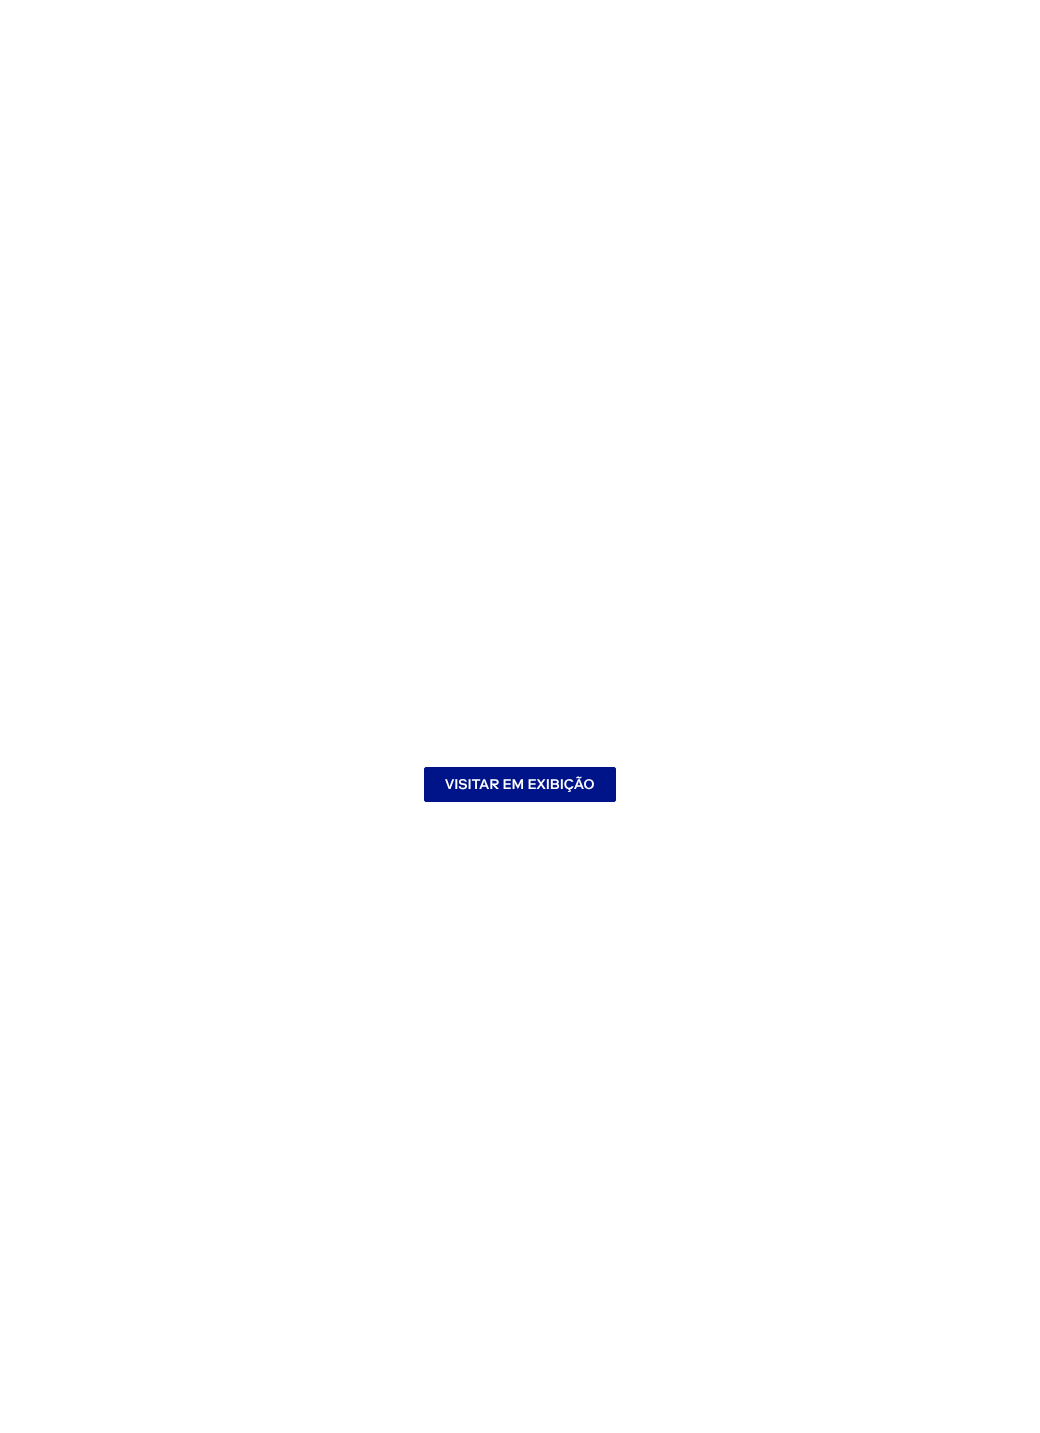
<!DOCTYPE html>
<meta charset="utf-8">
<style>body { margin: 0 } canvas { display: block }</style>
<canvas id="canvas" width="1040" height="1433"></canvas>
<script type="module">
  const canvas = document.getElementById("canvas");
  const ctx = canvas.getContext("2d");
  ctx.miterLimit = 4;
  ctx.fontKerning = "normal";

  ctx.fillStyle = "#ffffff";
  ctx.fillRect(0, 0, 1040, 1433);
  ctx.fillStyle = "#001489";
  ctx.beginPath();
  ctx.roundRect(424.5, 767.5, 191, 34, 1.5);
  ctx.fill();
  ctx.strokeStyle = "#001489";
  ctx.stroke();
  ctx.font = "500 14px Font";
  ctx.fillStyle = "#ffffff";
  ctx.fillText("VISITAR EM EXIBIÇÃO", 445, 789);
</script>
